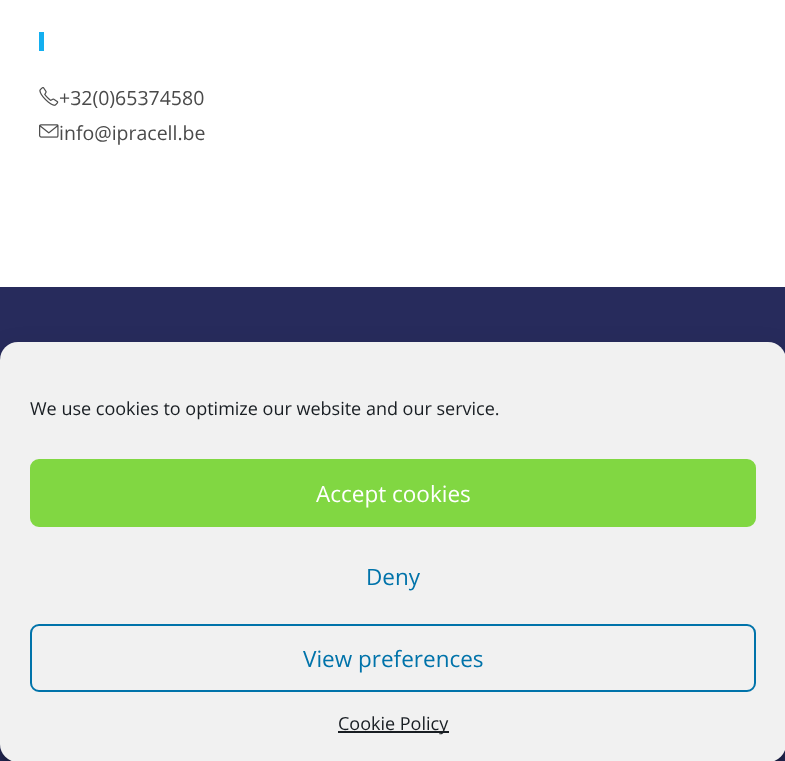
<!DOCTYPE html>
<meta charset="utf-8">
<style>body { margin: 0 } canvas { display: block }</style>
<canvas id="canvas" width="785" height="761"></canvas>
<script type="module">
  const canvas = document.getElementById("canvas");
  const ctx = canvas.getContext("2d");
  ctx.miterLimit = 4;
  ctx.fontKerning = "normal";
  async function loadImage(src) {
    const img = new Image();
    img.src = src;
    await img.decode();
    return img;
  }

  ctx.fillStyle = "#ffffff";
  ctx.fillRect(0, 0, 785, 761);
  ctx.fillStyle = "#13aff0";
  ctx.fillRect(39, 32, 5, 19);
  ctx.drawImage(await loadImage("img1.png"), 39, 87, 20, 19);
  ctx.font = "19.5px Open Sans";
  ctx.fillStyle = "#4a4a4a";
  ctx.fillText("+32(0)65374580", 59, 105);
  ctx.drawImage(await loadImage("img2.png"), 39, 124, 20, 14);
  ctx.fillText("info@ipracell.be", 59, 140);
  ctx.fillStyle = "#272b5c";
  ctx.fillRect(0, 287, 785, 474);
  ctx.fillStyle = "rgba(0, 0, 0, 0.23)";
  ctx.filter = "blur(4.5px)";
  ctx.beginPath();
  ctx.roundRect(0, 351, 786, 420, 18);
  ctx.fill();
  ctx.filter = "none";
  ctx.fillStyle = "rgba(0, 0, 0, 0.19)";
  ctx.filter = "blur(15px)";
  ctx.beginPath();
  ctx.roundRect(0, 357, 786, 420, 18);
  ctx.fill();
  ctx.filter = "none";
  ctx.fillStyle = "#f1f1f1";
  ctx.beginPath();
  ctx.roundRect(0, 342, 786, 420, 18);
  ctx.fill();
  ctx.font = "18px Open Sans";
  ctx.fillStyle = "#191e23";
  ctx.fillText("We use cookies to optimize our website and our service.", 30, 415);
  ctx.fillStyle = "#81d742";
  ctx.beginPath();
  ctx.roundRect(31, 460, 724, 66, 8);
  ctx.fill();
  ctx.strokeStyle = "#81d742";
  ctx.lineWidth = 2;
  ctx.stroke();
  ctx.font = "22.5px Open Sans";
  ctx.fillStyle = "#ffffff";
  ctx.fillText("Accept cookies", 316, 502);
  ctx.fillStyle = "#0073aa";
  ctx.fillText("Deny", 366, 585);
  ctx.beginPath();
  ctx.roundRect(31, 625, 724, 66, 8);
  ctx.strokeStyle = "#0073aa";
  ctx.stroke();
  ctx.fillText("View preferences", 303, 667);
  ctx.fillStyle = "#191e23";
  ctx.fillRect(338, 731, 111, 2);
  ctx.font = "18px Open Sans";
  ctx.fillText("Cookie Policy", 338, 730);
</script>
